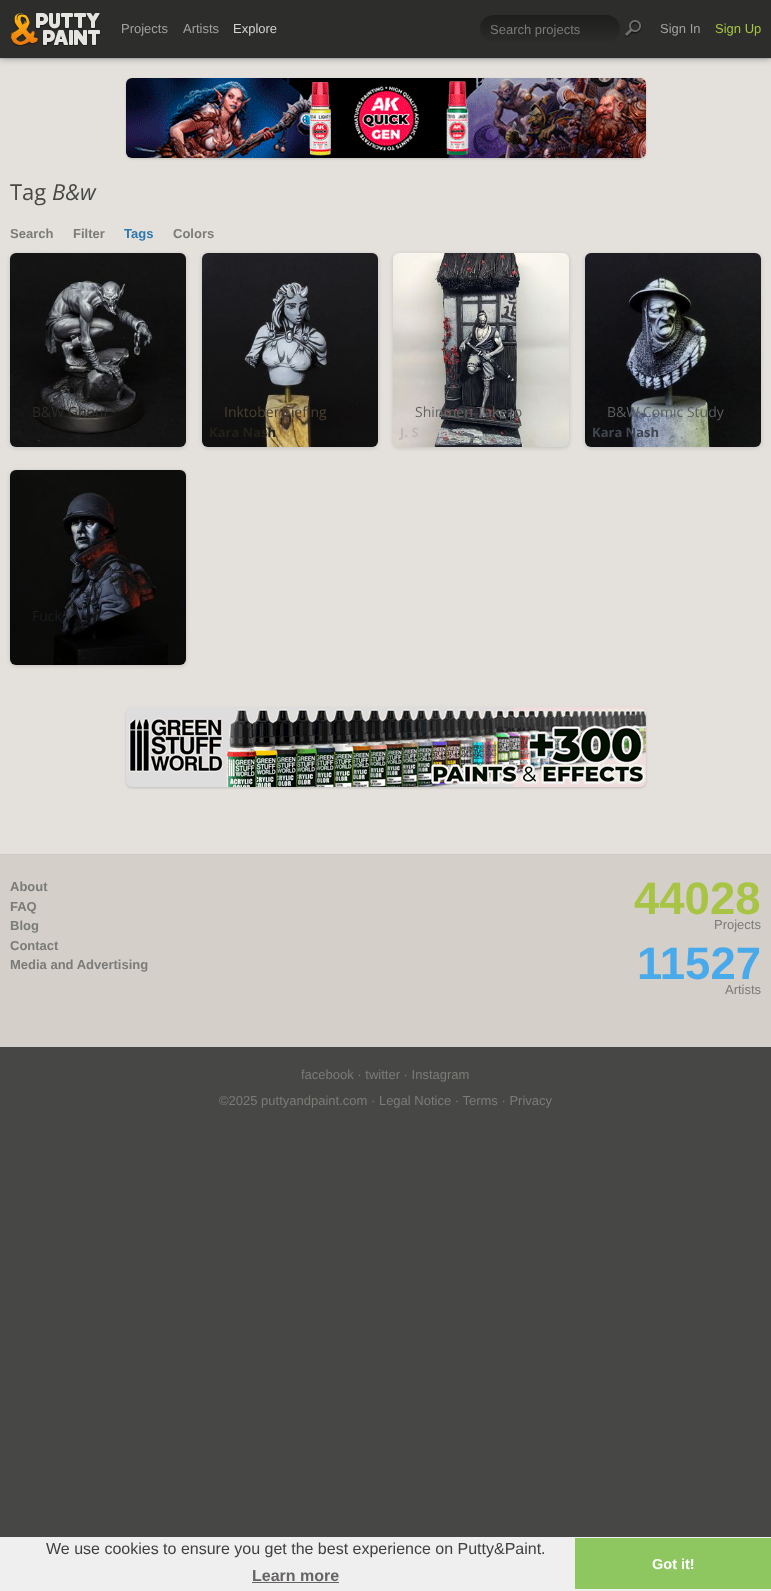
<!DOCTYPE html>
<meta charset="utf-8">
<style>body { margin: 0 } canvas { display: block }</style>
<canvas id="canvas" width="771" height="1591"></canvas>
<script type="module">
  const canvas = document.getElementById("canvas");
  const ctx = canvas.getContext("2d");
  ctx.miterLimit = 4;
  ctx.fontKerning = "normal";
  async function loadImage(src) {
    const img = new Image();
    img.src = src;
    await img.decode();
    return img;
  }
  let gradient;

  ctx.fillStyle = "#474746";
  ctx.fillRect(0, 0, 771, 1591);
  ctx.fillStyle = "#e4e1dd";
  ctx.fillRect(0, 58, 771, 796);
  ctx.fillStyle = "rgba(0, 0, 0, 0.1)";
  ctx.filter = "blur(0.5px)";
  ctx.beginPath();
  ctx.rect(0, 1, 771, 58);
  ctx.fill();
  ctx.filter = "none";
  ctx.fillStyle = "rgba(0, 0, 0, 0.3)";
  ctx.filter = "blur(3px)";
  ctx.beginPath();
  ctx.rect(0, 1, 771, 58);
  ctx.fill();
  ctx.filter = "none";
  ctx.fillStyle = "#2d2d2c";
  ctx.fillRect(0, 0, 771, 58);
  ctx.drawImage(await loadImage("img1.png"), 11, 13, 90, 33);
  ctx.font = "13px Liberation Sans";
  ctx.fillStyle = "#a1a19f";
  ctx.fillText("Projects", 121, 33);
  ctx.fillText("Artists", 183, 33);
  ctx.fillStyle = "#d3d3d2";
  ctx.fillText("Explore", 233, 33);
  gradient = ctx.createLinearGradient(550, 15, 550, 42);
  gradient.addColorStop(0, "#1e1e1d");
  gradient.addColorStop(1, "#2b2b2a");
  ctx.fillStyle = gradient;
  ctx.beginPath();
  ctx.roundRect(480, 15, 140, 27, 13.5);
  ctx.fill();
  ctx.fillStyle = "#7b7b78";
  ctx.fillText("Search projects", 490, 34);
  ctx.drawImage(await loadImage("img2.png"), 625, 20, 17, 17);
  ctx.fillStyle = "#a1a19f";
  ctx.fillText("Sign In", 660, 33);
  ctx.fillStyle = "#a7c444";
  ctx.fillText("Sign Up", 715, 33);
  ctx.fillStyle = "rgba(0, 0, 0, 0.15)";
  ctx.filter = "blur(1px)";
  ctx.beginPath();
  ctx.roundRect(126, 79, 520, 80, 6);
  ctx.fill();
  ctx.filter = "none";
  ctx.drawImage(await loadImage("img3.png"), 126, 78, 520, 80);
  ctx.font = "22px Open Sans";
  ctx.fillStyle = "#474746";
  ctx.fillText("Tag", 10, 200);
  ctx.font = "italic 22px Open Sans";
  ctx.fillText("B&w", 52, 200);
  ctx.font = "bold 13px Liberation Sans";
  ctx.fillStyle = "#7b7b78";
  ctx.fillText("Search", 10, 238);
  ctx.fillText("Filter", 73, 238);
  ctx.fillStyle = "#2c79ac";
  ctx.fillText("Tags", 124, 238);
  ctx.fillStyle = "#7b7b78";
  ctx.fillText("Colors", 173, 238);
  ctx.fillStyle = "rgba(0, 0, 0, 0.15)";
  ctx.filter = "blur(2px)";
  ctx.beginPath();
  ctx.roundRect(10, 254, 176, 194, 6);
  ctx.fill();
  ctx.filter = "none";
  ctx.drawImage(await loadImage("img4.png"), 10, 253, 176, 194);
  ctx.font = "14px Open Sans";
  ctx.fillStyle = "#2b2b2a";
  ctx.fillText("B&W Ghoul", 32, 417);
  ctx.fillStyle = "rgba(0, 0, 0, 0.15)";
  ctx.filter = "blur(2px)";
  ctx.beginPath();
  ctx.roundRect(202, 254, 176, 194, 6);
  ctx.fill();
  ctx.filter = "none";
  ctx.drawImage(await loadImage("img5.png"), 202, 253, 176, 194);
  ctx.fillStyle = "#49402f";
  ctx.fillText("Inktober Tiefing", 224, 417);
  ctx.font = "bold 13px Open Sans";
  ctx.fillStyle = "#23201a";
  ctx.fillText("Kara Nash", 209, 437);
  ctx.fillStyle = "rgba(0, 0, 0, 0.15)";
  ctx.filter = "blur(2px)";
  ctx.beginPath();
  ctx.roundRect(393, 254, 176, 194, 6);
  ctx.fill();
  ctx.filter = "none";
  ctx.drawImage(await loadImage("img6.png"), 393, 253, 176, 194);
  ctx.font = "14px Open Sans";
  ctx.fillStyle = "#676465";
  ctx.fillText("Shinmen Takezo", 415, 417);
  ctx.font = "bold 13px Open Sans";
  ctx.fillStyle = "#bdb7b5";
  ctx.fillText("J. S", 400, 437);
  ctx.fillText("ia", 438, 437);
  ctx.fillStyle = "rgba(0, 0, 0, 0.15)";
  ctx.filter = "blur(2px)";
  ctx.beginPath();
  ctx.roundRect(585, 254, 176, 194, 6);
  ctx.fill();
  ctx.filter = "none";
  ctx.drawImage(await loadImage("img7.png"), 585, 253, 176, 194);
  ctx.font = "14px Open Sans";
  ctx.fillStyle = "#595f60";
  ctx.fillText("B&W Comic Study", 607, 417);
  ctx.font = "bold 13px Open Sans";
  ctx.fillStyle = "#414651";
  ctx.fillText("Kara Nash", 592, 437);
  ctx.fillStyle = "rgba(0, 0, 0, 0.15)";
  ctx.filter = "blur(2px)";
  ctx.beginPath();
  ctx.roundRect(10, 471, 176, 195, 6);
  ctx.fill();
  ctx.filter = "none";
  ctx.drawImage(await loadImage("img8.png"), 10, 470, 176, 195);
  ctx.font = "14px Open Sans";
  ctx.fillStyle = "#1a1d21";
  ctx.fillText("Fuck", 32, 621);
  ctx.fillStyle = "rgba(0, 0, 0, 0.15)";
  ctx.filter = "blur(1px)";
  ctx.beginPath();
  ctx.roundRect(126, 708, 520, 80, 6);
  ctx.fill();
  ctx.filter = "none";
  ctx.drawImage(await loadImage("img9.png"), 126, 707, 520, 80);
  ctx.fillStyle = "#d4cfc9";
  ctx.fillRect(0, 855, 771, 192);
  ctx.fillStyle = "#cdc8c1";
  ctx.fillRect(0, 854, 771, 1);
  ctx.font = "bold 13px Liberation Sans";
  ctx.fillStyle = "#7b7b78";
  ctx.fillText("About", 10, 891);
  ctx.fillText("FAQ", 10, 911);
  ctx.fillText("Blog", 10, 930);
  ctx.fillText("Contact", 10, 950);
  ctx.fillText("Media and Advertising", 10, 969);
  ctx.font = "bold 45.5px Liberation Sans";
  ctx.fillStyle = "#a7c444";
  ctx.fillText("44028", 634, 914);
  ctx.font = "13px Liberation Sans";
  ctx.fillStyle = "#7b7b78";
  ctx.fillText("Projects", 714, 929);
  ctx.font = "bold 45.5px Liberation Sans";
  ctx.fillStyle = "#48aaea";
  ctx.fillText("11527", 637, 979);
  ctx.font = "13px Liberation Sans";
  ctx.fillStyle = "#7b7b78";
  ctx.fillText("Artists", 725, 994);
  ctx.fillText("facebook · twitter · Instagram", 301, 1079);
  ctx.fillText("©2025 puttyandpaint.com · Legal Notice · Terms · Privacy", 219, 1105);
  ctx.fillStyle = "#efefef";
  ctx.fillRect(0, 1537, 771, 54);
  ctx.font = "16px Liberation Sans";
  ctx.fillStyle = "#404040";
  ctx.fillText("We use cookies to ensure you get the best experience on Putty&Paint.", 46, 1554);
  ctx.font = "bold 16px Liberation Sans";
  ctx.fillStyle = "#676465";
  ctx.fillText("Learn more", 252, 1581);
  ctx.fillStyle = "#636363";
  ctx.fillRect(252, 1582, 87, 1);
  ctx.fillStyle = "#8ec760";
  ctx.fillRect(575, 1538, 196, 51);
  ctx.font = "bold 14.5px Liberation Sans";
  ctx.fillStyle = "#ffffff";
  ctx.fillText("Got it!", 652, 1569);
</script>
